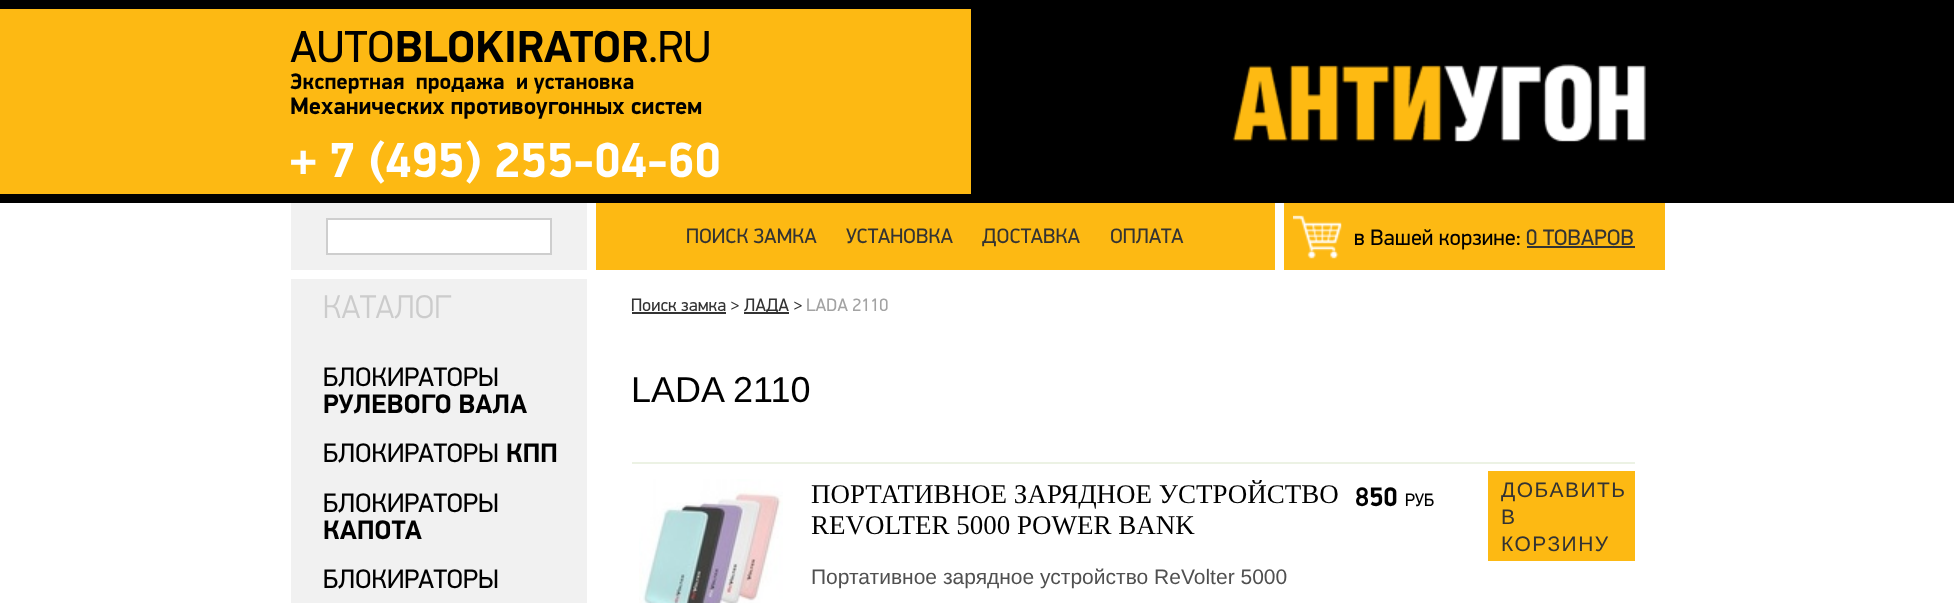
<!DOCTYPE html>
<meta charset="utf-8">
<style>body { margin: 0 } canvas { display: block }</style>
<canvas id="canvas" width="1954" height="603"></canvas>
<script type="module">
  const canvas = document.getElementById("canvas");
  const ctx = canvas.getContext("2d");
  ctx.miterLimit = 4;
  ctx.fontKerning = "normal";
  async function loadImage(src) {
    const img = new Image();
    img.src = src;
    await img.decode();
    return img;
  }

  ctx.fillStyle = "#ffffff";
  ctx.fillRect(0, 0, 1954, 603);
  ctx.fillStyle = "#000000";
  ctx.fillRect(980, 0, 974, 203);
  ctx.fillStyle = "#fdb913";
  ctx.fillRect(0, 9, 971, 185);
  ctx.fillStyle = "#000000";
  ctx.fillRect(0, 0, 980, 9);
  ctx.fillRect(0, 194, 980, 9);
  ctx.fillRect(971, 9, 9, 185);
  ctx.font = "45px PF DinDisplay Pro";
  ctx.fillText("AUTO", 290, 62);
  ctx.font = "bold 45px PF DinDisplay Pro";
  ctx.fillText("BLOKIRATOR", 395, 62);
  ctx.font = "45px PF DinDisplay Pro";
  ctx.fillText(".RU", 648, 62);
  ctx.font = "bold 22.5px PF DinDisplay Pro";
  ctx.fillText("Экспертная  продажа  и установка", 290, 89);
  ctx.font = "bold 24px PF DinDisplay Pro";
  ctx.fillText("Механических противоугонных систем", 290, 114);
  ctx.font = "bold 49.5px PF DinDisplay Pro";
  ctx.fillStyle = "#ffffff";
  ctx.fillText("+ 7 (495) 255-04-60", 290, 177);
  ctx.drawImage(await loadImage("img1.png"), 1232, 64, 414, 78);
  ctx.fillStyle = "#fdb913";
  ctx.fillRect(596, 203, 1069, 67);
  ctx.fillStyle = "#f1f1f1";
  ctx.fillRect(291, 203, 296, 67);
  ctx.fillStyle = "#ffffff";
  ctx.beginPath();
  ctx.rect(327, 219, 224, 35);
  ctx.fill();
  ctx.strokeStyle = "#cecece";
  ctx.lineWidth = 2;
  ctx.stroke();
  ctx.font = "21px PF DinDisplay Pro";
  ctx.fillStyle = "#333333";
  ctx.fillText("ПОИСК ЗАМКА", 686, 243);
  ctx.fillText("УСТАНОВКА", 846, 243);
  ctx.fillText("ДОСТАВКА", 982, 243);
  ctx.fillText("ОПЛАТА", 1110, 243);
  ctx.drawImage(await loadImage("img2.png"), 1293, 215, 49, 44);
  ctx.fillStyle = "#ffffff";
  ctx.fillRect(1275, 203, 9, 67);
  ctx.font = "22.5px PF DinDisplay Pro";
  ctx.fillStyle = "#000000";
  ctx.fillText("в Вашей корзине:", 1354, 245);
  ctx.fillStyle = "#333333";
  ctx.fillText("0 ТОВАРОВ", 1526, 245);
  ctx.fillRect(1527, 246, 108, 2);
  ctx.fillStyle = "#f1f1f1";
  ctx.fillRect(291, 279, 296, 324);
  ctx.font = "300 33px PF DinDisplay Pro";
  ctx.fillStyle = "#cccccc";
  ctx.fillText("КАТАЛОГ", 323, 318);
  ctx.font = "27px PF DinDisplay Pro";
  ctx.fillStyle = "#000000";
  ctx.fillText("БЛОКИРАТОРЫ", 323, 386);
  ctx.font = "bold 27px PF DinDisplay Pro";
  ctx.fillText("РУЛЕВОГО ВАЛА", 323, 413);
  ctx.font = "27px PF DinDisplay Pro";
  ctx.fillText("БЛОКИРАТОРЫ", 323, 462);
  ctx.font = "bold 27px PF DinDisplay Pro";
  ctx.fillText("КПП", 506, 462);
  ctx.font = "27px PF DinDisplay Pro";
  ctx.fillText("БЛОКИРАТОРЫ", 323, 512);
  ctx.font = "bold 27px PF DinDisplay Pro";
  ctx.fillText("КАПОТА", 323, 539);
  ctx.font = "27px PF DinDisplay Pro";
  ctx.fillText("БЛОКИРАТОРЫ", 323, 588);
  ctx.font = "18px PF DinDisplay Pro";
  ctx.fillStyle = "#333333";
  ctx.fillText("Поиск замка >", 631, 311);
  ctx.fillRect(632, 312, 94, 2);
  ctx.fillRect(744, 312, 45, 2);
  ctx.fillText("ЛАДА >", 744, 311);
  ctx.fillStyle = "#a3a3a3";
  ctx.fillText("LADA 2110", 806, 311);
  ctx.font = "36px Liberation Sans";
  ctx.fillStyle = "#000000";
  ctx.fillText("LADA 2110", 631, 402);
  ctx.fillStyle = "#ecf2e4";
  ctx.fillRect(632, 462, 1003, 2);
  ctx.drawImage(await loadImage("img3.png"), 639, 479, 144, 124);
  ctx.font = "27px Liberation Serif";
  ctx.fillStyle = "#000000";
  ctx.fillText("ПОРТАТИВНОЕ ЗАРЯДНОЕ УСТРОЙСТВО", 811, 503);
  ctx.fillText("REVOLTER 5000 POWER BANK", 811, 534);
  ctx.font = "21px Liberation Sans";
  ctx.fillStyle = "#505050";
  ctx.fillText("Портативное зарядное устройство ReVolter 5000", 811, 584);
  ctx.font = "bold 27px PF DinDisplay Pro";
  ctx.fillStyle = "#000000";
  ctx.fillText("850", 1355, 506);
  ctx.font = "18px PF DinDisplay Pro";
  ctx.fillText("РУБ", 1405, 506);
  ctx.fillStyle = "#fdb913";
  ctx.fillRect(1488, 471, 147, 90);
  ctx.letterSpacing = "1.5px";
  ctx.font = "21px Liberation Sans";
  ctx.fillStyle = "#333333";
  ctx.fillText("ДОБАВИТЬ", 1501, 497);
  ctx.fillText("В", 1501, 524);
  ctx.fillText("КОРЗИНУ", 1501, 551);
</script>
